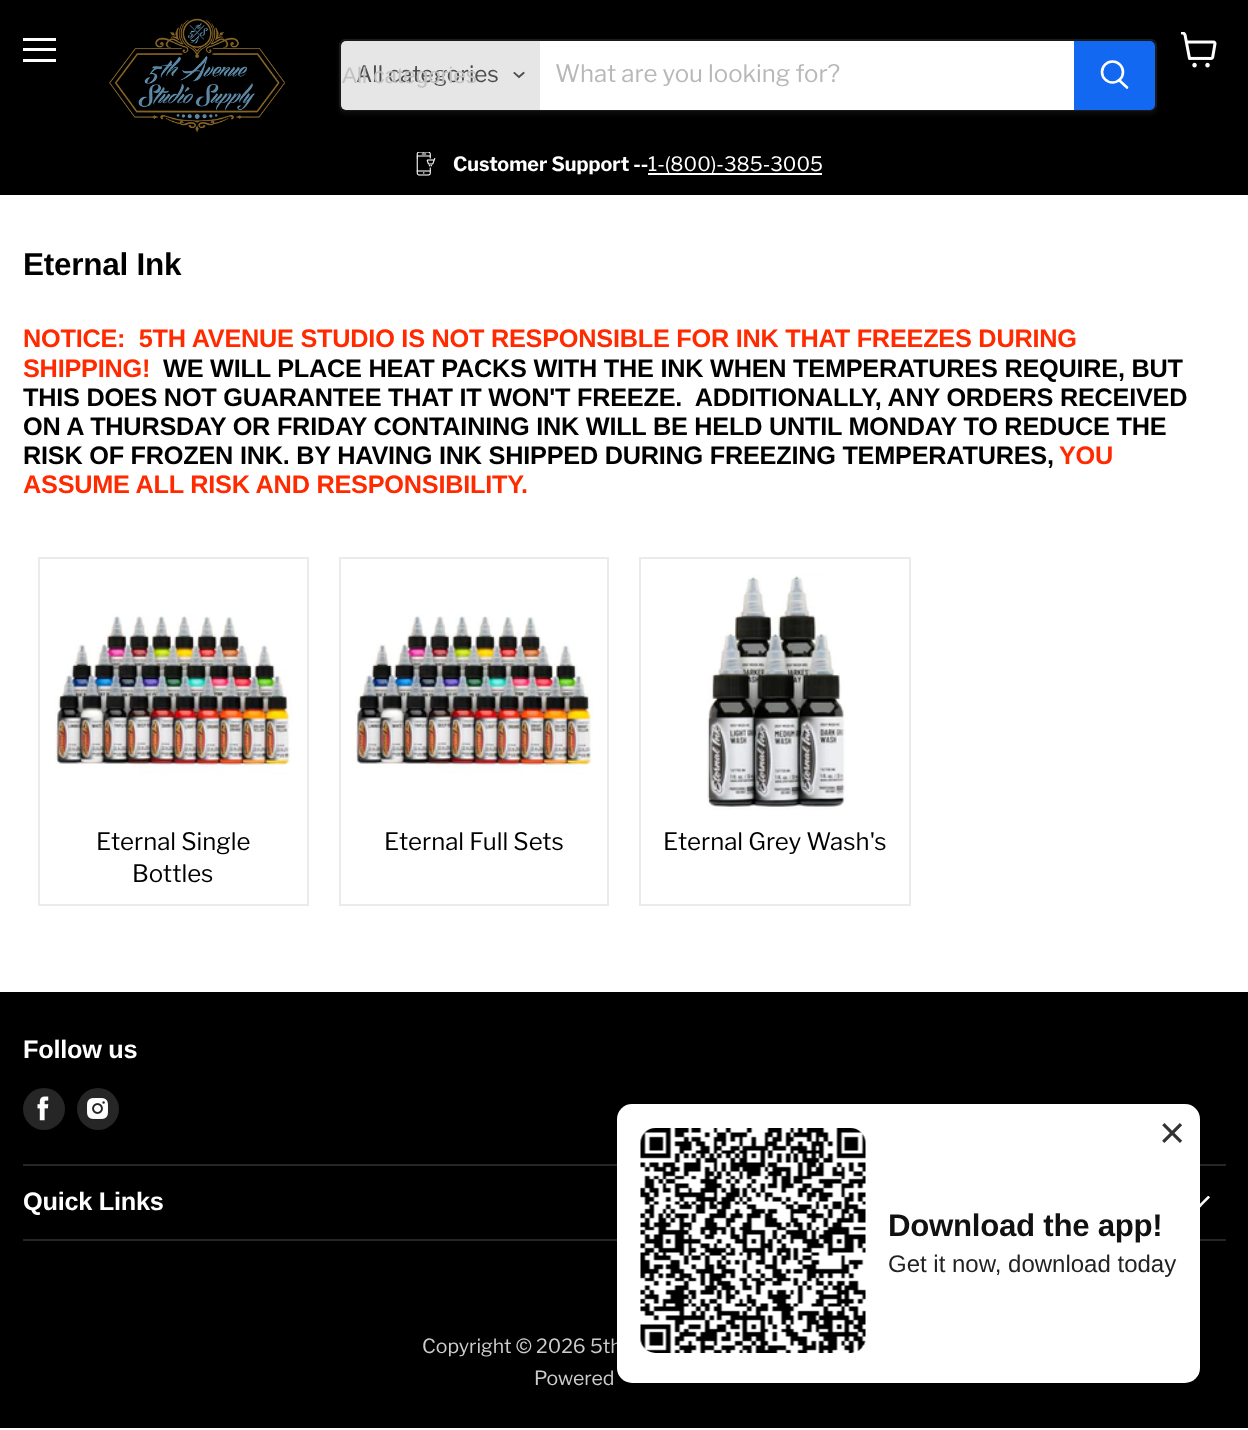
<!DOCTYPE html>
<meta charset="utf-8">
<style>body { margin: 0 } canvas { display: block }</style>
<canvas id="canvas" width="1248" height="1430"></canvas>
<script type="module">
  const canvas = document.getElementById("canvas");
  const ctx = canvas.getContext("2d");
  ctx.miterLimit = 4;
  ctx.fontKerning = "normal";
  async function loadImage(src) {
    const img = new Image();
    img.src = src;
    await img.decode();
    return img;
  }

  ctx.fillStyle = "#ffffff";
  ctx.fillRect(0, 0, 1248, 1430);
  ctx.fillStyle = "#000000";
  ctx.fillRect(0, 0, 1248, 195);
  ctx.fillStyle = "#ffffff";
  ctx.fillRect(23, 38, 33, 3);
  ctx.fillRect(23, 48, 33, 3);
  ctx.fillRect(23, 59, 33, 3);
  ctx.drawImage(await loadImage("img1.png"), 1181, 32, 36, 36);
  ctx.drawImage(await loadImage("img2.png"), 109, 18, 177, 115);
  ctx.save();
  ctx.beginPath();
  ctx.moveTo(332, 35);
  ctx.lineTo(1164, 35);
  ctx.lineTo(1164, 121);
  ctx.lineTo(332, 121);
  ctx.closePath();
  ctx.moveTo(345, 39);
  ctx.lineTo(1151, 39);
  ctx.bezierCurveTo(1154.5, 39, 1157, 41.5, 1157, 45);
  ctx.lineTo(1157, 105);
  ctx.bezierCurveTo(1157, 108.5, 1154.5, 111, 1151, 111);
  ctx.lineTo(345, 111);
  ctx.bezierCurveTo(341.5, 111, 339, 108.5, 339, 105);
  ctx.lineTo(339, 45);
  ctx.bezierCurveTo(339, 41.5, 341.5, 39, 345, 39);
  ctx.closePath();
  ctx.clip("evenodd");
  ctx.fillStyle = "rgba(128, 128, 128, 0.11)";
  ctx.filter = "blur(2px)";
  ctx.beginPath();
  ctx.roundRect(339, 42, 818, 72, 6);
  ctx.fill();
  ctx.filter = "none";
  ctx.restore();
  ctx.beginPath();
  ctx.roundRect(340, 40, 816, 70, 5);
  ctx.strokeStyle = "rgba(128, 128, 128, 0.2)";
  ctx.lineWidth = 2;
  ctx.stroke();
  ctx.fillStyle = "#e6e6e6";
  ctx.beginPath();
  ctx.roundRect(341, 41, 199, 69, [5, 0, 0, 5]);
  ctx.fill();
  ctx.font = "22.5px Libre Franklin";
  ctx.fillStyle = "#4d4d4d";
  ctx.fillText("All categories", 356, 82);
  ctx.font = "22.5px Liberation Sans";
  ctx.fillStyle = "#c2c2c2";
  ctx.fillText("All categories", 342, 83);
  ctx.beginPath();
  ctx.moveTo(519, 77);
  ctx.lineTo(523.5, 73);
  ctx.moveTo(519, 77);
  ctx.lineTo(514.5, 73);
  ctx.strokeStyle = "#4d4d4d";
  ctx.lineWidth = 1.9;
  ctx.lineCap = "square";
  ctx.stroke();
  ctx.fillStyle = "#ffffff";
  ctx.fillRect(540, 41, 534, 69);
  ctx.font = "24px Libre Franklin";
  ctx.fillStyle = "#b8b8b8";
  ctx.fillText("What are you looking for?", 555, 82);
  ctx.fillStyle = "#1268f1";
  ctx.beginPath();
  ctx.roundRect(1075, 42, 79, 67, [0, 4, 4, 0]);
  ctx.fill();
  ctx.strokeStyle = "#1268f1";
  ctx.lineWidth = 2;
  ctx.stroke();
  ctx.beginPath();
  ctx.moveTo(1127, 87.5);
  ctx.lineTo(1119.5, 80.5);
  ctx.strokeStyle = "#ffffff";
  ctx.lineWidth = 2.6;
  ctx.lineCap = "round";
  ctx.stroke();
  ctx.beginPath();
  ctx.arc(1112.5, 72, 10.5, 0, Math.PI * 2);
  ctx.stroke();
  ctx.drawImage(await loadImage("img3.png"), 416, 152, 20, 24);
  ctx.font = "bold 19.75px Libre Franklin";
  ctx.fillStyle = "#ffffff";
  ctx.fillText("Customer Support --", 453, 171);
  ctx.fillRect(648, 173, 174, 2);
  ctx.font = "19.75px Libre Franklin";
  ctx.fillText("1-(800)-385-3005", 648, 171);
  ctx.letterSpacing = "-0.25px";
  ctx.font = "bold 31.5px Arimo";
  ctx.fillStyle = "#000000";
  ctx.fillText("Eternal Ink", 23, 275);
  ctx.font = "bold 25.3px Arimo";
  ctx.fillStyle = "#ff2a00";
  ctx.fillText("NOTICE:  5TH AVENUE STUDIO IS NOT RESPONSIBLE FOR INK THAT FREEZES DURING", 23, 347);
  ctx.fillText("SHIPPING!", 23, 377);
  ctx.fillStyle = "#000000";
  ctx.fillText("WE WILL PLACE HEAT PACKS WITH THE INK WHEN TEMPERATURES REQUIRE, BUT", 163, 377);
  ctx.fillText("THIS DOES NOT GUARANTEE THAT IT WON'T FREEZE.  ADDITIONALLY, ANY ORDERS RECEIVED", 23, 406);
  ctx.fillText("ON A THURSDAY OR FRIDAY CONTAINING INK WILL BE HELD UNTIL MONDAY TO REDUCE THE", 23, 435);
  ctx.fillText("RISK OF FROZEN INK. BY HAVING INK SHIPPED DURING FREEZING TEMPERATURES,", 23, 464);
  ctx.fillStyle = "#ff2a00";
  ctx.fillText("YOU", 1059, 464);
  ctx.fillText("ASSUME ALL RISK AND RESPONSIBILITY.", 23, 493);
  ctx.strokeStyle = "#ebebeb";
  ctx.lineWidth = 2;
  ctx.strokeRect(39, 558, 269, 347);
  ctx.drawImage(await loadImage("img4.png"), 55, 615, 237, 159);
  ctx.letterSpacing = "0px";
  ctx.font = "24px Libre Franklin";
  ctx.fillStyle = "#000000";
  ctx.fillText("Eternal Single", 96, 850);
  ctx.fillText("Bottles", 132, 882);
  ctx.strokeRect(340, 558, 268, 347);
  ctx.drawImage(await loadImage("img5.png"), 355, 615, 238, 159);
  ctx.fillText("Eternal Full Sets", 384, 850);
  ctx.strokeStyle = "rgba(128, 128, 128, 0.16)";
  ctx.strokeRect(640, 558, 270, 347);
  ctx.drawImage(await loadImage("img6.png"), 707, 574, 139, 236);
  ctx.fillText("Eternal Grey Wash's", 663, 850);
  ctx.fillRect(0, 992, 1248, 436);
  ctx.fillStyle = "#262626";
  ctx.fillRect(23, 1164, 1203, 2);
  ctx.letterSpacing = "-0.25px";
  ctx.font = "bold 25.3px Arimo";
  ctx.fillStyle = "#ffffff";
  ctx.fillText("Follow us", 23, 1058);
  ctx.fillStyle = "#262626";
  ctx.beginPath();
  ctx.arc(44, 1109, 21, 0, Math.PI * 2);
  ctx.fill();
  ctx.drawImage(await loadImage("img7.png"), 37, 1096, 12, 25);
  ctx.beginPath();
  ctx.arc(98, 1109, 21, 0, Math.PI * 2);
  ctx.fill();
  ctx.drawImage(await loadImage("img8.png"), 87, 1098, 21, 21);
  ctx.fillRect(23, 1239, 1203, 2);
  ctx.fillStyle = "#ffffff";
  ctx.fillText("Quick Links", 23, 1210);
  ctx.drawImage(await loadImage("img9.png"), 1200, 1196, 10, 12);
  ctx.letterSpacing = "0px";
  ctx.font = "19.5px Libre Franklin";
  ctx.fillStyle = "#cccccc";
  ctx.fillText("Copyright © 2026 5th", 422, 1353);
  ctx.fillText("Powered", 534, 1385);
  ctx.fillStyle = "rgba(0, 0, 0, 0.08)";
  ctx.filter = "blur(3px)";
  ctx.beginPath();
  ctx.roundRect(615, 1103, 587, 282, 17);
  ctx.fill();
  ctx.filter = "none";
  ctx.fillStyle = "#ffffff";
  ctx.beginPath();
  ctx.roundRect(617, 1104, 583, 279, 15);
  ctx.fill();
  ctx.drawImage(await loadImage("img10.png"), 640, 1128, 226, 225);
  ctx.font = "45px Liberation Sans";
  ctx.fillStyle = "#333333";
  ctx.fillText("×", 1159, 1148);
  ctx.letterSpacing = "-0.3px";
  ctx.font = "bold 31.25px Arimo";
  ctx.fillStyle = "#111111";
  ctx.fillText("Download the app!", 888, 1236);
  ctx.letterSpacing = "0px";
  ctx.font = "24px Liberation Sans";
  ctx.fillStyle = "#222222";
  ctx.fillText("Get it now, download today", 888, 1272);
</script>
